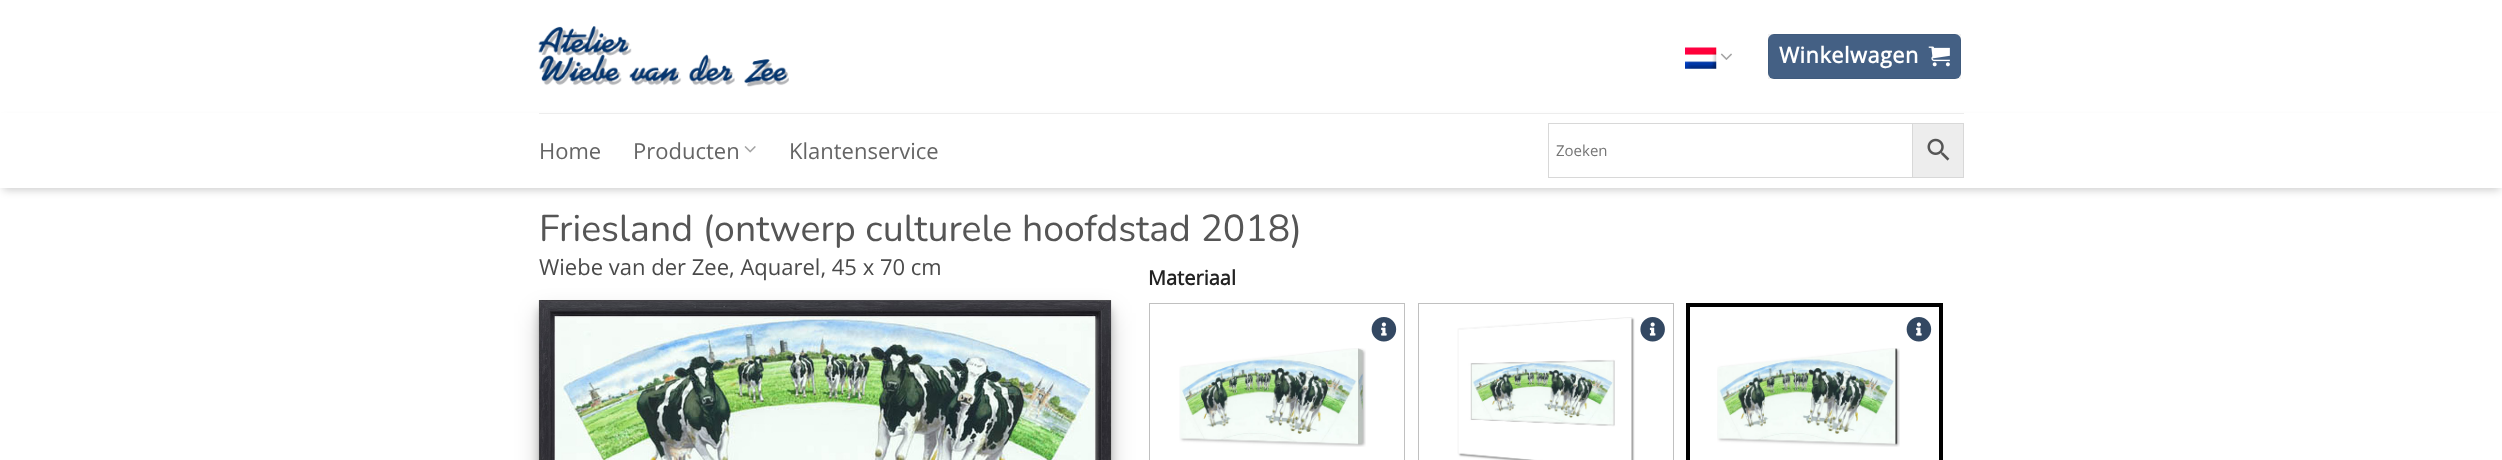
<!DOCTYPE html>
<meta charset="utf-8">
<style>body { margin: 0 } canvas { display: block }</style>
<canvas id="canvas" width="2502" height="460"></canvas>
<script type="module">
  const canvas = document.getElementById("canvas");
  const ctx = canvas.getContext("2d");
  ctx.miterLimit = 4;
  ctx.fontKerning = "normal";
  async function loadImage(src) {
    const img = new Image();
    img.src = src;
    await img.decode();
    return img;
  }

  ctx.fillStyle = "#ffffff";
  ctx.fillRect(0, 0, 2502, 460);
  ctx.drawImage(await loadImage("img1.png"), 538, 26, 251, 61);
  ctx.drawImage(await loadImage("img2.png"), 1685, 47, 32, 22);
  ctx.drawImage(await loadImage("img3.png"), 1720, 53, 12, 7);
  ctx.fillStyle = "#446084";
  ctx.beginPath();
  ctx.roundRect(1768, 34, 193, 45, 6);
  ctx.fill();
  ctx.strokeStyle = "rgba(0, 0, 0, 0.05)";
  ctx.strokeRect(1768.5, 34.5, 192, 44);
  ctx.letterSpacing = "0.5px";
  ctx.font = "bold 21.75px Open Sans";
  ctx.fillStyle = "#ffffff";
  ctx.fillText("Winkelwagen", 1779, 63);
  ctx.drawImage(await loadImage("img4.png"), 1928, 46, 22, 21);
  ctx.fillStyle = "rgba(0, 0, 0, 0.2)";
  ctx.filter = "blur(4.5px)";
  ctx.beginPath();
  ctx.rect(3, 120, 2497, 70);
  ctx.fill();
  ctx.filter = "none";
  ctx.fillStyle = "#ffffff";
  ctx.fillRect(0, 113, 2502, 75);
  ctx.fillStyle = "#ededed";
  ctx.fillRect(539, 113, 1425, 1);
  ctx.letterSpacing = "0px";
  ctx.font = "22px Open Sans";
  ctx.fillStyle = "#656565";
  ctx.fillText("Home", 539, 159);
  ctx.fillText("Producten", 633, 159);
  ctx.drawImage(await loadImage("img5.png"), 744, 146, 12, 7);
  ctx.fillText("Klantenservice", 789, 159);
  ctx.fillStyle = "#ededed";
  ctx.fillRect(1913, 124, 50, 53);
  ctx.strokeStyle = "#d8d8d8";
  ctx.strokeRect(1911.5, 123.5, 52, 54);
  ctx.fillStyle = "#ffffff";
  ctx.fillRect(1911, 124, 1, 53);
  ctx.strokeRect(1548.5, 123.5, 364, 54);
  ctx.font = "15px Open Sans";
  ctx.fillStyle = "#757575";
  ctx.fillText("Zoeken", 1556, 156);
  ctx.drawImage(await loadImage("img6.png"), 1927, 138, 23, 23);
  ctx.font = "200 37.4px Nunito";
  ctx.fillStyle = "#555555";
  ctx.fillText("Friesland (ontwerp culturele hoofdstad 2018)", 539, 241);
  ctx.font = "22px Open Sans";
  ctx.fillStyle = "#4a4a4a";
  ctx.fillText("Wiebe van der Zee, Aquarel, 45 x 70 cm", 539, 275);
  ctx.fillStyle = "rgba(0, 0, 0, 0.23)";
  ctx.filter = "blur(4px)";
  ctx.beginPath();
  ctx.rect(539, 308, 572, 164);
  ctx.fill();
  ctx.filter = "none";
  ctx.fillStyle = "rgba(0, 0, 0, 0.19)";
  ctx.filter = "blur(12.5px)";
  ctx.beginPath();
  ctx.rect(539, 313, 572, 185);
  ctx.fill();
  ctx.filter = "none";
  ctx.drawImage(await loadImage("img7.png"), 538, 300, 574, 160);
  ctx.font = "bold 20px Open Sans";
  ctx.fillStyle = "#222222";
  ctx.fillText("Materiaal", 1148, 285);
  ctx.strokeStyle = "#c0c0c0";
  ctx.strokeRect(1149.5, 303.5, 255, 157);
  ctx.drawImage(await loadImage("img8.png"), 1371, 317, 26, 25);
  ctx.drawImage(await loadImage("img9.png"), 1179, 348, 187, 99);
  ctx.strokeRect(1418.5, 303.5, 255, 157);
  ctx.drawImage(await loadImage("img10.png"), 1457, 317, 178, 143);
  ctx.drawImage(await loadImage("img11.png"), 1640, 317, 25, 25);
  ctx.strokeStyle = "#000000";
  ctx.lineWidth = 4;
  ctx.strokeRect(1688, 305, 253, 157);
  ctx.drawImage(await loadImage("img8.png"), 1906, 317, 26, 25);
  ctx.drawImage(await loadImage("img12.png"), 1717, 348, 183, 99);
</script>
